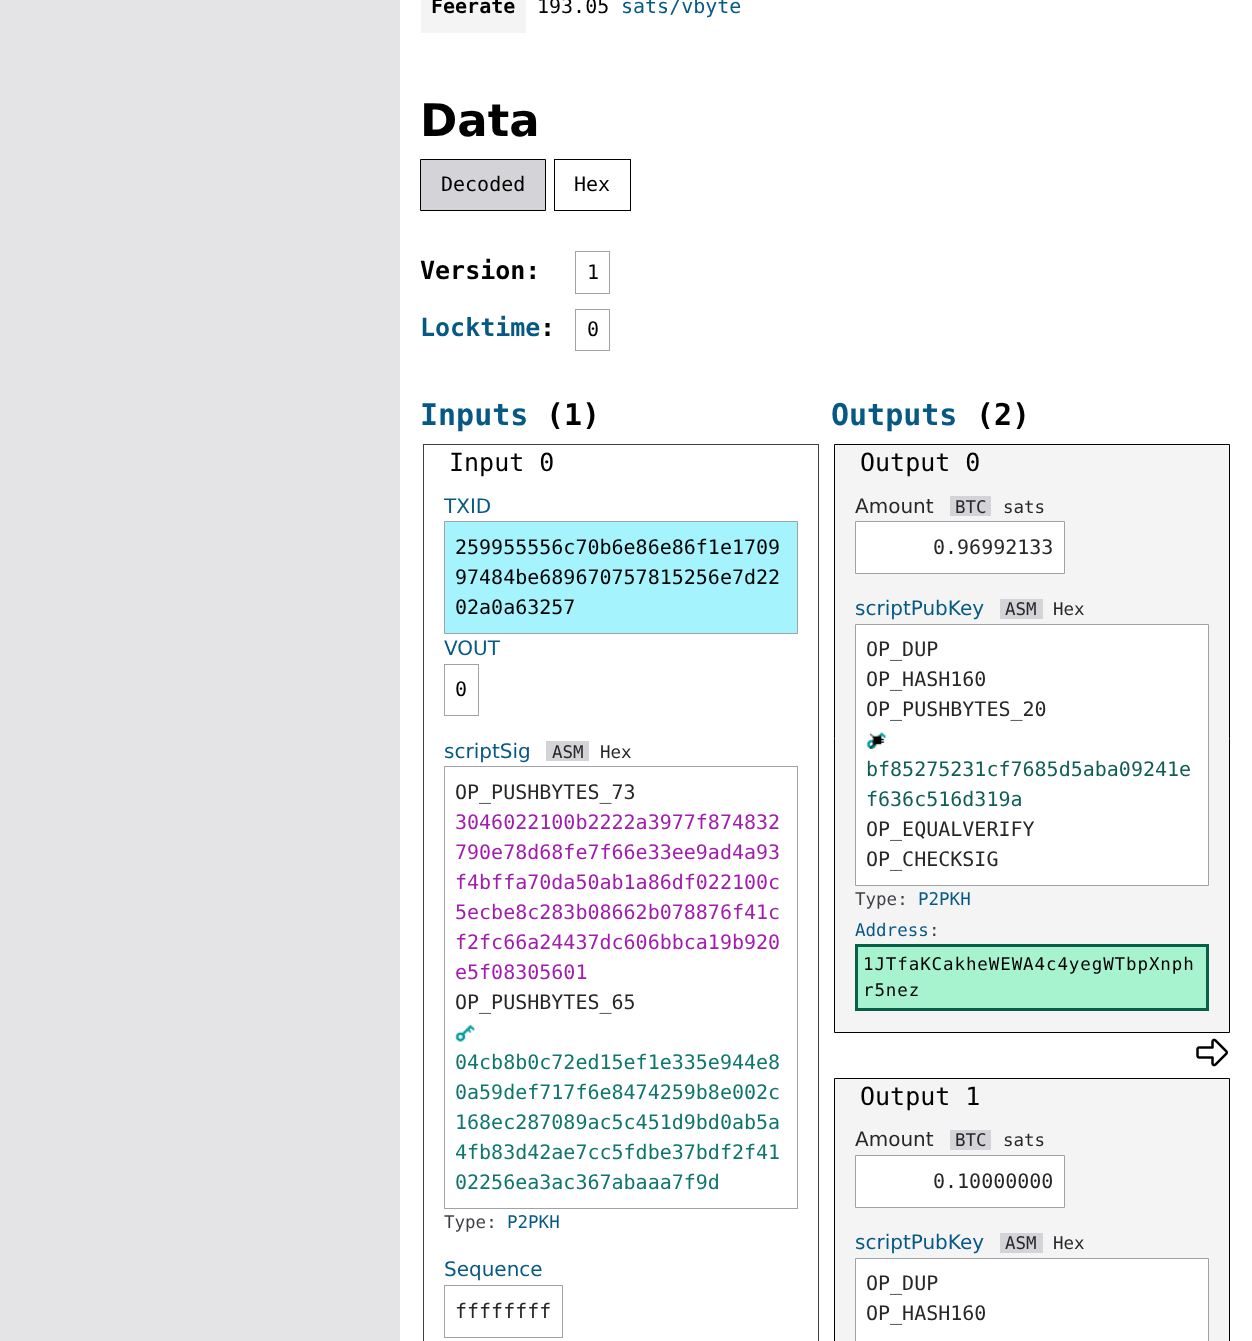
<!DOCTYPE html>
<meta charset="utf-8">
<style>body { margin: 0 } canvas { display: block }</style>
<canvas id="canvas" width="1252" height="1341"></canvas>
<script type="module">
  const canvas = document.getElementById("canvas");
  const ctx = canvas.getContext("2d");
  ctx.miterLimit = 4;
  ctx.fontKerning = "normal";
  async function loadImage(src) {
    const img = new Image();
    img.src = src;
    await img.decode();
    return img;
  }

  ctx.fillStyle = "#ffffff";
  ctx.fillRect(0, 0, 1252, 1341);
  ctx.fillStyle = "#e4e4e7";
  ctx.fillRect(0, 0, 400, 1341);
  ctx.fillStyle = "#f4f4f5";
  ctx.fillRect(421, 0, 105, 33);
  ctx.font = "bold 20px DejaVu Sans Mono";
  ctx.fillStyle = "#000000";
  ctx.fillText("Feerate", 431, 13);
  ctx.font = "20px DejaVu Sans Mono";
  ctx.fillText("193.05", 537, 13);
  ctx.fillStyle = "#075985";
  ctx.fillText("sats/vbyte", 621, 13);
  ctx.font = "bold 45px DejaVu Sans";
  ctx.fillStyle = "#000000";
  ctx.fillText("Data", 420, 136);
  ctx.fillStyle = "#d4d4d8";
  ctx.beginPath();
  ctx.rect(420.5, 159.5, 125, 51);
  ctx.fill();
  ctx.strokeStyle = "#000000";
  ctx.stroke();
  ctx.font = "20px DejaVu Sans Mono";
  ctx.fillStyle = "#000000";
  ctx.fillText("Decoded", 441, 191);
  ctx.strokeRect(554.5, 159.5, 76, 51);
  ctx.fillText("Hex", 574, 191);
  ctx.font = "bold 25px DejaVu Sans Mono";
  ctx.fillText("Version:", 420, 279);
  ctx.strokeStyle = "#a1a1aa";
  ctx.strokeRect(575.5, 251.5, 34, 42);
  ctx.font = "20px DejaVu Sans Mono";
  ctx.fillText("1", 587, 279);
  ctx.font = "bold 25px DejaVu Sans Mono";
  ctx.fillStyle = "#075985";
  ctx.fillText("Locktime", 420, 336);
  ctx.fillStyle = "#000000";
  ctx.fillText(":", 540, 336);
  ctx.strokeRect(575.5, 309.5, 34, 41);
  ctx.font = "20px DejaVu Sans Mono";
  ctx.fillText("0", 587, 336);
  ctx.font = "bold 30px DejaVu Sans Mono";
  ctx.fillStyle = "#075985";
  ctx.fillText("Inputs", 420, 425);
  ctx.fillStyle = "#000000";
  ctx.fillText("(1)", 546, 425);
  ctx.strokeStyle = "#3f3f46";
  ctx.strokeRect(423.5, 444.5, 395, 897);
  ctx.font = "25px DejaVu Sans Mono";
  ctx.fillText("Input 0", 449, 471);
  ctx.font = "20px DejaVu Sans";
  ctx.fillStyle = "#075985";
  ctx.fillText("TXID", 444, 513);
  ctx.fillStyle = "#a5f3fc";
  ctx.beginPath();
  ctx.rect(444.5, 521.5, 353, 112);
  ctx.fill();
  ctx.strokeStyle = "#a1a1aa";
  ctx.stroke();
  ctx.font = "20px DejaVu Sans Mono";
  ctx.fillStyle = "#000000";
  ctx.fillText("259955556c70b6e86e86f1e1709", 455, 554);
  ctx.fillText("97484be689670757815256e7d22", 455, 584);
  ctx.fillText("02a0a63257", 455, 614);
  ctx.font = "20px DejaVu Sans";
  ctx.fillStyle = "#075985";
  ctx.fillText("VOUT", 444, 655);
  ctx.strokeRect(444.5, 664.5, 34, 51);
  ctx.font = "20px DejaVu Sans Mono";
  ctx.fillStyle = "#000000";
  ctx.fillText("0", 455, 696);
  ctx.font = "20px DejaVu Sans";
  ctx.fillStyle = "#075985";
  ctx.fillText("scriptSig", 444, 758);
  ctx.fillStyle = "#d4d4d8";
  ctx.fillRect(546, 741, 43, 20);
  ctx.font = "17.5px DejaVu Sans Mono";
  ctx.fillStyle = "#27272a";
  ctx.fillText("ASM", 552, 758);
  ctx.fillText("Hex", 600, 758);
  ctx.strokeRect(444.5, 766.5, 353, 442);
  ctx.font = "20px DejaVu Sans Mono";
  ctx.fillText("OP_PUSHBYTES_73", 455, 799);
  ctx.fillStyle = "#a21caf";
  ctx.fillText("3046022100b2222a3977f874832", 455, 829);
  ctx.fillText("790e78d68fe7f66e33ee9ad4a93", 455, 859);
  ctx.fillText("f4bffa70da50ab1a86df022100c", 455, 889);
  ctx.fillText("5ecbe8c283b08662b078876f41c", 455, 919);
  ctx.fillText("f2fc66a24437dc606bbca19b920", 455, 949);
  ctx.fillText("e5f08305601", 455, 979);
  ctx.fillStyle = "#27272a";
  ctx.fillText("OP_PUSHBYTES_65", 455, 1009);
  ctx.drawImage(await loadImage("img1.png"), 455, 1024, 20, 18);
  ctx.fillStyle = "#0f766e";
  ctx.fillText("04cb8b0c72ed15ef1e335e944e8", 455, 1069);
  ctx.fillText("0a59def717f6e8474259b8e002c", 455, 1099);
  ctx.fillText("168ec287089ac5c451d9bd0ab5a", 455, 1129);
  ctx.fillText("4fb83d42ae7cc5fdbe37bdf2f41", 455, 1159);
  ctx.fillText("02256ea3ac367abaaa7f9d", 455, 1189);
  ctx.font = "17.5px DejaVu Sans Mono";
  ctx.fillStyle = "#3f3f46";
  ctx.fillText("Type:", 444, 1228);
  ctx.fillStyle = "#075985";
  ctx.fillText("P2PKH", 507, 1228);
  ctx.font = "20px DejaVu Sans";
  ctx.fillText("Sequence", 444, 1276);
  ctx.strokeRect(444.5, 1285.5, 118, 52);
  ctx.font = "20px DejaVu Sans Mono";
  ctx.fillStyle = "#27272a";
  ctx.fillText("ffffffff", 455, 1318);
  ctx.font = "bold 30px DejaVu Sans Mono";
  ctx.fillStyle = "#075985";
  ctx.fillText("Outputs", 831, 425);
  ctx.fillStyle = "#000000";
  ctx.fillText("(2)", 976, 425);
  ctx.fillStyle = "#f4f4f5";
  ctx.beginPath();
  ctx.rect(834.5, 444.5, 395, 588);
  ctx.fill();
  ctx.strokeStyle = "#000000";
  ctx.stroke();
  ctx.font = "25px DejaVu Sans Mono";
  ctx.fillStyle = "#000000";
  ctx.fillText("Output 0", 860, 471);
  ctx.font = "20px DejaVu Sans";
  ctx.fillStyle = "#27272a";
  ctx.fillText("Amount", 855, 513);
  ctx.fillStyle = "#d4d4d8";
  ctx.fillRect(950, 496, 41, 20);
  ctx.font = "17.5px DejaVu Sans Mono";
  ctx.fillStyle = "#27272a";
  ctx.fillText("BTC", 955, 513);
  ctx.fillText("sats", 1003, 513);
  ctx.fillStyle = "#ffffff";
  ctx.beginPath();
  ctx.rect(855.5, 521.5, 209, 52);
  ctx.fill();
  ctx.strokeStyle = "#a1a1aa";
  ctx.stroke();
  ctx.font = "20px DejaVu Sans Mono";
  ctx.fillStyle = "#27272a";
  ctx.fillText("0.96992133", 933, 554);
  ctx.font = "20px DejaVu Sans";
  ctx.fillStyle = "#075985";
  ctx.fillText("scriptPubKey", 855, 615);
  ctx.fillStyle = "#d4d4d8";
  ctx.fillRect(1000, 599, 43, 20);
  ctx.font = "17.5px DejaVu Sans Mono";
  ctx.fillStyle = "#27272a";
  ctx.fillText("ASM", 1005, 615);
  ctx.fillText("Hex", 1053, 615);
  ctx.fillStyle = "#ffffff";
  ctx.beginPath();
  ctx.rect(855.5, 624.5, 353, 261);
  ctx.fill();
  ctx.stroke();
  ctx.font = "20px DejaVu Sans Mono";
  ctx.fillStyle = "#27272a";
  ctx.fillText("OP_DUP", 866, 656);
  ctx.fillText("OP_HASH160", 866, 686);
  ctx.fillText("OP_PUSHBYTES_20", 866, 716);
  ctx.drawImage(await loadImage("img2.png"), 866, 731, 21, 18);
  ctx.fillStyle = "#115e59";
  ctx.fillText("bf85275231cf7685d5aba09241e", 866, 776);
  ctx.fillText("f636c516d319a", 866, 806);
  ctx.fillStyle = "#27272a";
  ctx.fillText("OP_EQUALVERIFY", 866, 836);
  ctx.fillText("OP_CHECKSIG", 866, 866);
  ctx.font = "17.5px DejaVu Sans Mono";
  ctx.fillStyle = "#3f3f46";
  ctx.fillText("Type:", 855, 905);
  ctx.fillStyle = "#075985";
  ctx.fillText("P2PKH", 918, 905);
  ctx.fillText("Address", 855, 936);
  ctx.fillStyle = "#3f3f46";
  ctx.fillText(":", 929, 936);
  ctx.fillStyle = "#a7f3d0";
  ctx.beginPath();
  ctx.rect(856.5, 945.5, 351, 64);
  ctx.fill();
  ctx.strokeStyle = "#065f46";
  ctx.lineWidth = 3;
  ctx.stroke();
  ctx.letterSpacing = "0.9px";
  ctx.fillStyle = "#000000";
  ctx.fillText("1JTfaKCakheWEWA4c4yegWTbpXnph", 863, 970);
  ctx.fillText("r5nez", 863, 996);
  ctx.drawImage(await loadImage("img3.png"), 1196, 1038, 32, 29);
  ctx.fillStyle = "#f4f4f5";
  ctx.beginPath();
  ctx.rect(834.5, 1078.5, 395, 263);
  ctx.fill();
  ctx.strokeStyle = "#000000";
  ctx.lineWidth = 1;
  ctx.stroke();
  ctx.letterSpacing = "0px";
  ctx.font = "25px DejaVu Sans Mono";
  ctx.fillStyle = "#000000";
  ctx.fillText("Output 1", 860, 1105);
  ctx.font = "20px DejaVu Sans";
  ctx.fillStyle = "#27272a";
  ctx.fillText("Amount", 855, 1146);
  ctx.fillStyle = "#d4d4d8";
  ctx.fillRect(950, 1130, 41, 20);
  ctx.font = "17.5px DejaVu Sans Mono";
  ctx.fillStyle = "#27272a";
  ctx.fillText("BTC", 955, 1146);
  ctx.fillText("sats", 1003, 1146);
  ctx.fillStyle = "#ffffff";
  ctx.beginPath();
  ctx.rect(855.5, 1155.5, 209, 52);
  ctx.fill();
  ctx.strokeStyle = "#a1a1aa";
  ctx.stroke();
  ctx.font = "20px DejaVu Sans Mono";
  ctx.fillStyle = "#27272a";
  ctx.fillText("0.10000000", 933, 1188);
  ctx.font = "20px DejaVu Sans";
  ctx.fillStyle = "#075985";
  ctx.fillText("scriptPubKey", 855, 1249);
  ctx.fillStyle = "#d4d4d8";
  ctx.fillRect(1000, 1233, 43, 20);
  ctx.font = "17.5px DejaVu Sans Mono";
  ctx.fillStyle = "#27272a";
  ctx.fillText("ASM", 1005, 1249);
  ctx.fillText("Hex", 1053, 1249);
  ctx.fillStyle = "#ffffff";
  ctx.beginPath();
  ctx.rect(855.5, 1258.5, 353, 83);
  ctx.fill();
  ctx.stroke();
  ctx.font = "20px DejaVu Sans Mono";
  ctx.fillStyle = "#27272a";
  ctx.fillText("OP_DUP", 866, 1290);
  ctx.fillText("OP_HASH160", 866, 1320);
</script>
